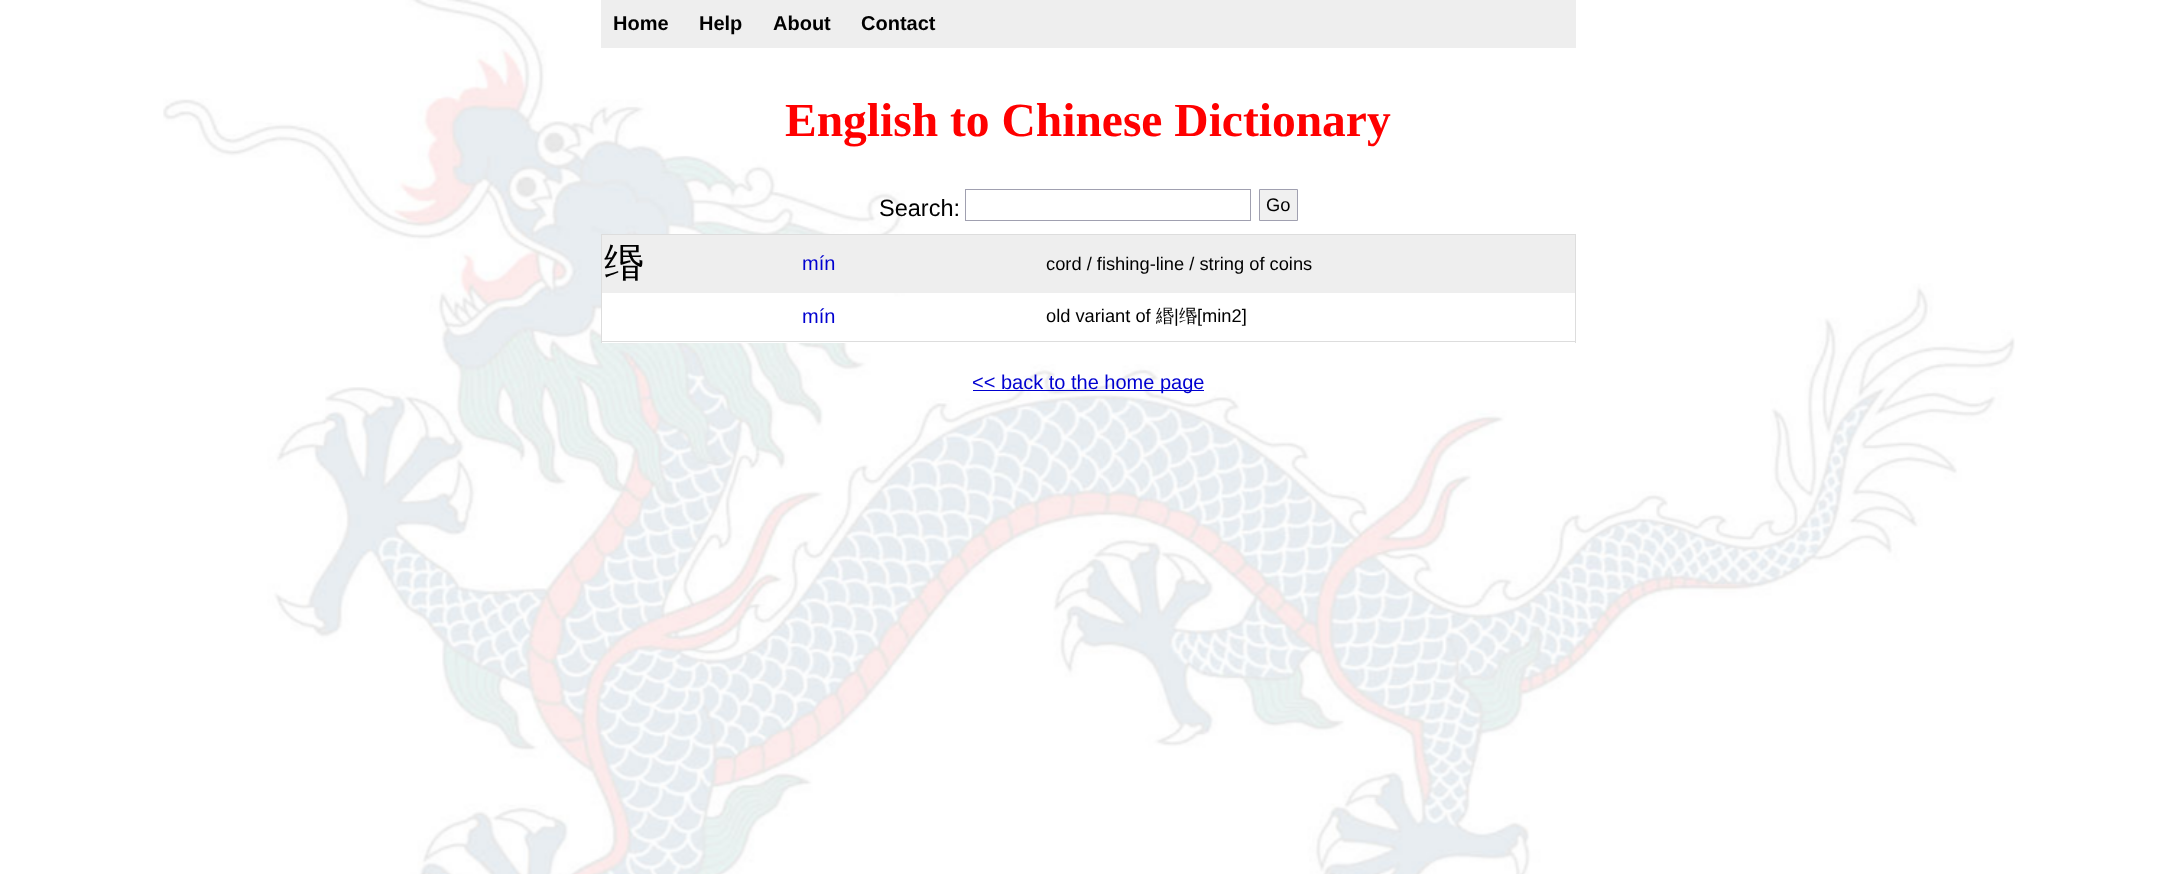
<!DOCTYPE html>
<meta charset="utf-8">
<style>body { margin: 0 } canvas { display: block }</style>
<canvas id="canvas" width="2176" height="874"></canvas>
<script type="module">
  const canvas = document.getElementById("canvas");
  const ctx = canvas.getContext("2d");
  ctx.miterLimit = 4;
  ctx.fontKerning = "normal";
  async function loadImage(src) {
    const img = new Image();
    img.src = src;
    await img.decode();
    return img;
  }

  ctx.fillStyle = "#ffffff";
  ctx.fillRect(0, 0, 2176, 874);
  ctx.drawImage(await loadImage("img1.png"), 163, 0, 1852, 874);
  ctx.fillStyle = "#eeeeee";
  ctx.fillRect(601, 0, 975, 48);
  ctx.font = "bold 20px Liberation Sans";
  ctx.fillStyle = "#000000";
  ctx.fillText("Home", 613, 30);
  ctx.fillText("Help", 699, 30);
  ctx.fillText("About", 773, 30);
  ctx.fillText("Contact", 861, 30);
  ctx.font = "bold 47.5px Liberation Serif";
  ctx.fillStyle = "#ff0000";
  ctx.fillText("English to Chinese Dictionary", 785, 136);
  ctx.font = "23.5px Liberation Sans";
  ctx.fillStyle = "#000000";
  ctx.fillText("Search:", 879, 216);
  ctx.strokeStyle = "#a0a0b0";
  ctx.strokeRect(965.5, 189.5, 285, 31);
  ctx.fillStyle = "#f0f0f0";
  ctx.beginPath();
  ctx.rect(1259.5, 189.5, 38, 31);
  ctx.fill();
  ctx.stroke();
  ctx.font = "18.3px Liberation Sans";
  ctx.fillStyle = "#000000";
  ctx.fillText("Go", 1266, 211);
  ctx.fillStyle = "#ffffff";
  ctx.fillRect(602, 293, 292, 50);
  ctx.fillStyle = "#dddddd";
  ctx.fillRect(601, 234, 975, 1);
  ctx.fillRect(1575, 234, 1, 109);
  ctx.fillRect(601, 341, 975, 1);
  ctx.fillRect(601, 234, 1, 109);
  ctx.fillStyle = "#eeeeee";
  ctx.fillRect(602, 235, 973, 58);
  ctx.font = "500 40px WenQuanYi Zen Hei";
  ctx.fillStyle = "#000000";
  ctx.fillText("缗", 604, 276);
  ctx.font = "20px Liberation Sans";
  ctx.fillStyle = "#0000d0";
  ctx.fillText("mín", 802, 270);
  ctx.font = "18.3px Liberation Sans";
  ctx.fillStyle = "#000000";
  ctx.fillText("cord / fishing-line / string of coins", 1046, 270);
  ctx.font = "20px Liberation Sans";
  ctx.fillStyle = "#0000d0";
  ctx.fillText("mín", 802, 323);
  ctx.font = "18.3px Liberation Sans";
  ctx.fillStyle = "#000000";
  ctx.fillText("old variant of", 1046, 322);
  ctx.font = "500 18.3px WenQuanYi Zen Hei";
  ctx.fillText("緡", 1156, 322);
  ctx.font = "18.3px Liberation Sans";
  ctx.fillText("|", 1174, 322);
  ctx.font = "500 18.3px WenQuanYi Zen Hei";
  ctx.fillText("缗", 1179, 322);
  ctx.font = "18.3px Liberation Sans";
  ctx.fillText("[min2]", 1197, 322);
  ctx.fillStyle = "#0000d0";
  ctx.fillRect(973, 390, 231, 1);
  ctx.font = "20px Liberation Sans";
  ctx.fillText("<< back to the home page", 972, 389);
</script>
